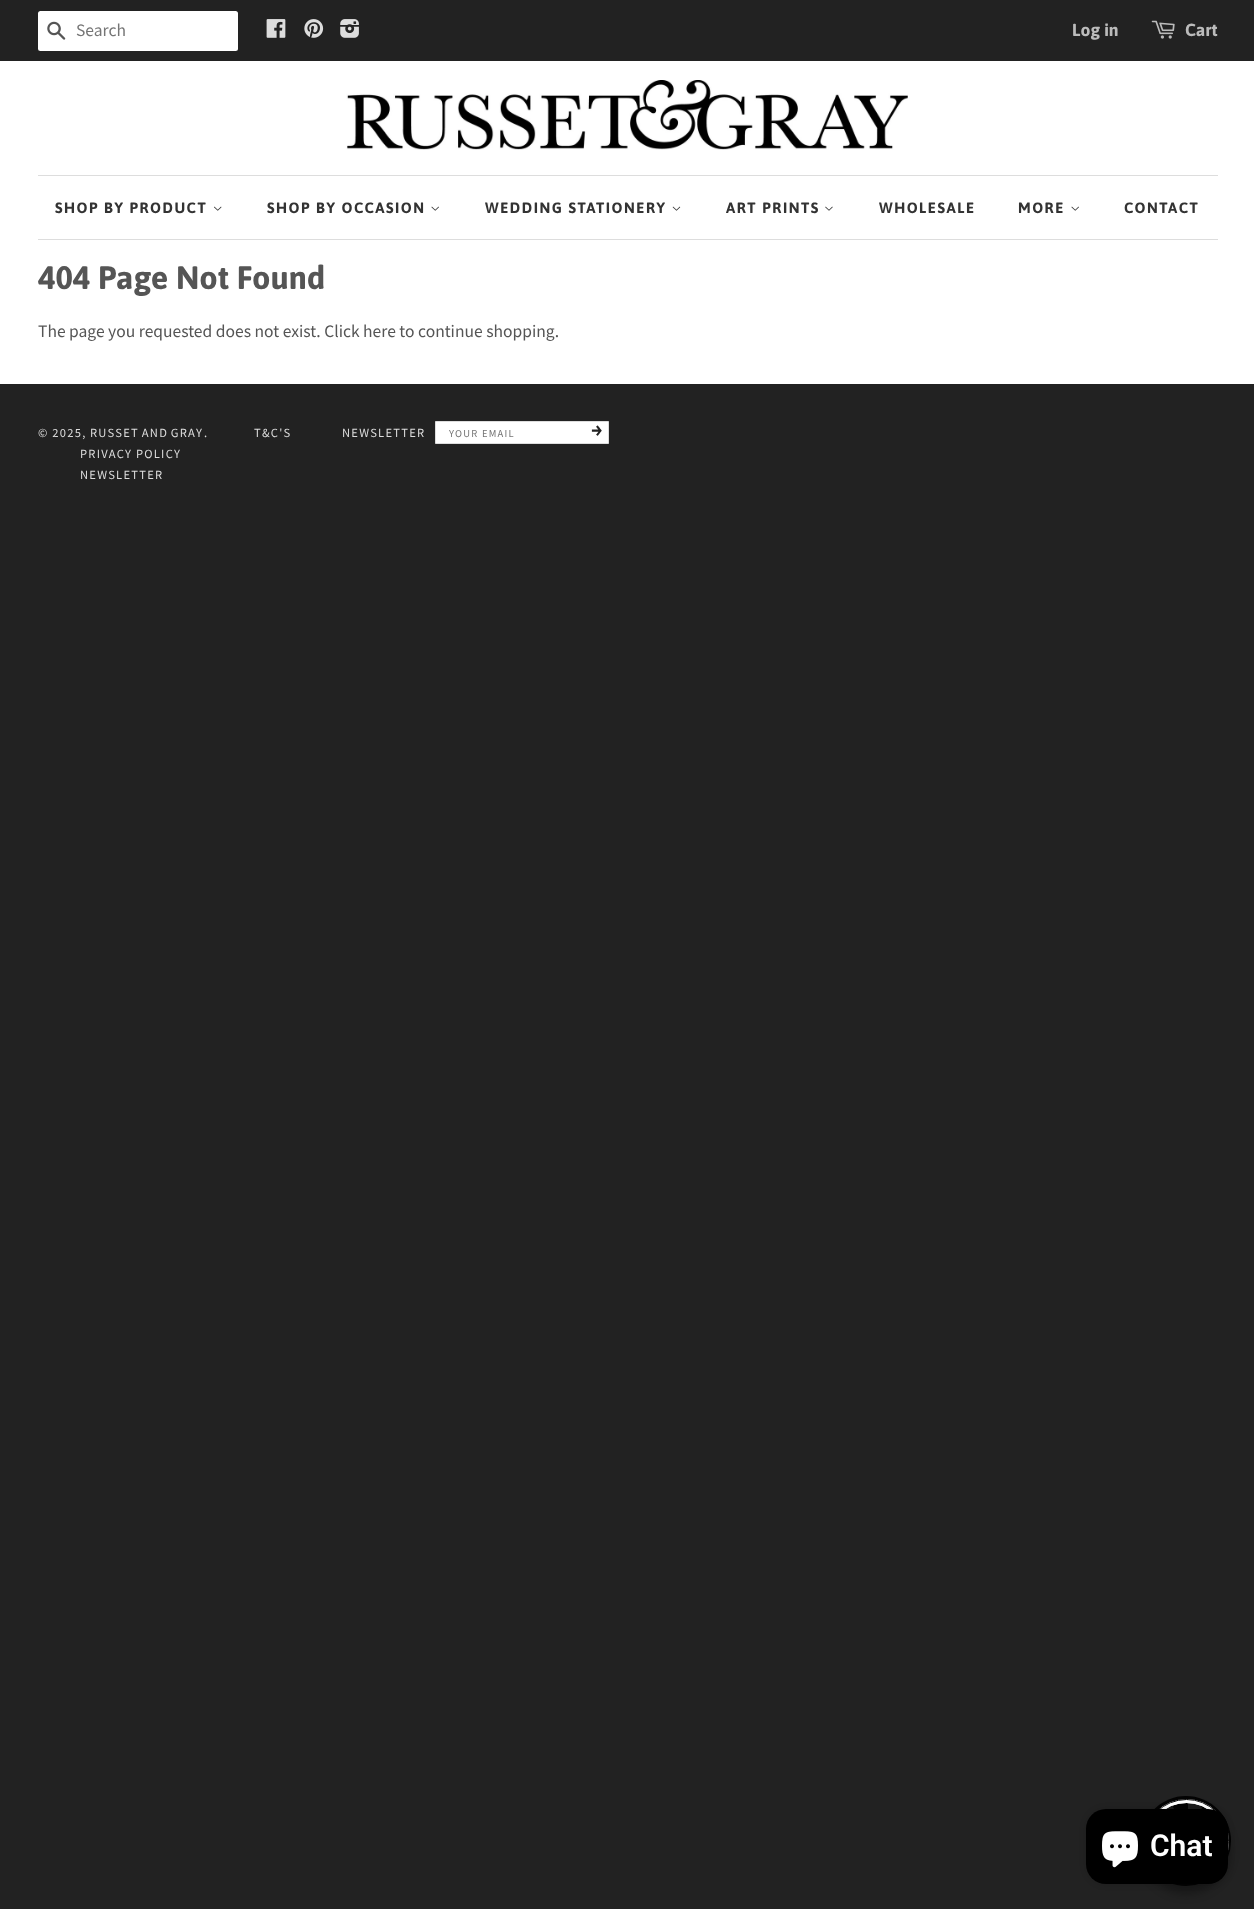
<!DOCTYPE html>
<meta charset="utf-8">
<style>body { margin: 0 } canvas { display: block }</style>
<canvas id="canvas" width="1254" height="1909"></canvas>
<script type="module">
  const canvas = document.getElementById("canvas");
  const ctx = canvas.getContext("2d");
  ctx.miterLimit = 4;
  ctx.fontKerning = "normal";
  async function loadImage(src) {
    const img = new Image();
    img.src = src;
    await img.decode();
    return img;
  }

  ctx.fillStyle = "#222222";
  ctx.fillRect(0, 0, 1254, 1909);
  ctx.fillStyle = "#ffffff";
  ctx.fillRect(0, 61, 1254, 323);
  ctx.beginPath();
  ctx.roundRect(38, 11, 200, 40, 2.5);
  ctx.fill();
  ctx.drawImage(await loadImage("img1.png"), 47, 21, 19, 19);
  ctx.font = "17.5px Source Sans Pro";
  ctx.fillStyle = "#757575";
  ctx.fillText("Search", 76, 36);
  ctx.drawImage(await loadImage("img2.png"), 266, 19, 20, 19);
  ctx.drawImage(await loadImage("img3.png"), 304, 19, 20, 19);
  ctx.drawImage(await loadImage("img4.png"), 340, 19, 19, 19);
  ctx.font = "bold 17.5px Asap";
  ctx.fillStyle = "#bbbbbb";
  ctx.fillText("Log in", 1072, 36);
  ctx.drawImage(await loadImage("img5.png"), 1151, 20, 24, 19);
  ctx.fillText("Cart", 1185, 36);
  ctx.drawImage(await loadImage("img6.png"), 346, 80, 562, 70);
  ctx.fillStyle = "#dddddd";
  ctx.fillRect(38, 175, 1180, 1);
  ctx.fillRect(38, 239, 1180, 1);
  ctx.letterSpacing = "1.5px";
  ctx.font = "bold 15px Asap";
  ctx.fillStyle = "#333333";
  ctx.fillText("SHOP BY PRODUCT", 55, 213);
  ctx.drawImage(await loadImage("img7.png"), 214, 206, 8, 5);
  ctx.fillText("SHOP BY OCCASION", 267, 213);
  ctx.drawImage(await loadImage("img8.png"), 431, 206, 8, 5);
  ctx.fillText("WEDDING STATIONERY", 485, 213);
  ctx.drawImage(await loadImage("img9.png"), 672, 206, 9, 5);
  ctx.fillText("ART PRINTS", 726, 213);
  ctx.drawImage(await loadImage("img10.png"), 825, 206, 8, 5);
  ctx.fillText("WHOLESALE", 879, 213);
  ctx.fillText("MORE", 1018, 213);
  ctx.drawImage(await loadImage("img8.png"), 1071, 206, 8, 5);
  ctx.fillText("CONTACT", 1124, 213);
  ctx.letterSpacing = "0px";
  ctx.font = "bold 32.5px Asap";
  ctx.fillStyle = "#555555";
  ctx.fillText("404 Page Not Found", 38, 289);
  ctx.font = "17.5px Source Sans Pro";
  ctx.fillText("The page you requested does not exist. Click here to continue shopping.", 38, 337);
  ctx.letterSpacing = "1.25px";
  ctx.font = "12.5px Source Sans Pro";
  ctx.fillStyle = "#dddddd";
  ctx.fillText("© 2025,", 38, 437);
  ctx.wordSpacing = "-1px";
  ctx.fillText("RUSSET AND GRAY", 90, 437);
  ctx.wordSpacing = "0px";
  ctx.fillText(".", 204, 437);
  ctx.fillText("T&C'S", 254, 437);
  ctx.fillText("PRIVACY POLICY", 80, 458);
  ctx.fillText("NEWSLETTER", 80, 479);
  ctx.fillText("NEWSLETTER", 342, 437);
  ctx.fillStyle = "#ffffff";
  ctx.beginPath();
  ctx.rect(435.5, 421.5, 173, 22);
  ctx.fill();
  ctx.strokeStyle = "#dddddd";
  ctx.stroke();
  ctx.font = "10.5px Source Sans Pro";
  ctx.fillStyle = "#757575";
  ctx.fillText("YOUR EMAIL", 449, 437);
  ctx.font = "bold 22px Chiron Hei HK";
  ctx.fillStyle = "#222222";
  ctx.fillText("￫", 591, 439);
  ctx.fillStyle = "rgba(0, 0, 0, 0.3)";
  ctx.filter = "blur(5px)";
  ctx.beginPath();
  ctx.roundRect(1143, 1806, 87, 88, 43.5);
  ctx.fill();
  ctx.filter = "none";
  ctx.fillStyle = "#030303";
  ctx.filter = "blur(0.5px)";
  ctx.beginPath();
  ctx.roundRect(1141, 1796, 90, 90, 45);
  ctx.fill();
  ctx.filter = "none";
  ctx.beginPath();
  ctx.arc(1186.5, 1841.5, 40.5, 0, Math.PI * 2);
  ctx.strokeStyle = "#ffffff";
  ctx.lineWidth = 4;
  ctx.stroke();
  ctx.beginPath();
  ctx.arc(1186.5, 1841.5, 40.5, 0, Math.PI * 2);
  ctx.stroke();
  ctx.beginPath();
  ctx.arc(1186.5, 1841.5, 42, 0, Math.PI * 2);
  ctx.strokeStyle = "#030303";
  ctx.lineWidth = 1;
  ctx.stroke();
  ctx.beginPath();
  ctx.arc(1186.5, 1841.5, 43, 0, Math.PI * 2);
  ctx.stroke();
  ctx.fillStyle = "rgba(255, 255, 255, 0.1)";
  ctx.beginPath();
  ctx.moveTo(1171, 1802);
  ctx.bezierCurveTo(1166, 1804, 1161, 1807, 1157, 1811);
  ctx.lineTo(1188, 1842);
  ctx.lineTo(1147, 1825);
  ctx.bezierCurveTo(1145, 1831, 1144, 1836, 1144, 1842);
  ctx.lineTo(1188, 1842);
  ctx.lineTo(1148, 1859);
  ctx.bezierCurveTo(1150, 1864, 1153, 1869, 1157, 1873);
  ctx.lineTo(1188, 1842);
  ctx.lineTo(1171, 1881);
  ctx.bezierCurveTo(1177, 1883, 1182, 1884, 1188, 1884);
  ctx.lineTo(1188, 1842);
  ctx.lineTo(1204, 1880);
  ctx.bezierCurveTo(1209, 1878, 1213, 1875, 1217, 1871);
  ctx.lineTo(1188, 1842);
  ctx.lineTo(1226, 1858);
  ctx.bezierCurveTo(1228, 1853, 1229, 1848, 1229, 1842);
  ctx.lineTo(1188, 1842);
  ctx.lineTo(1226, 1826);
  ctx.bezierCurveTo(1224, 1821, 1221, 1816, 1218, 1812);
  ctx.lineTo(1188, 1842);
  ctx.lineTo(1204, 1803);
  ctx.bezierCurveTo(1199, 1801, 1194, 1799, 1188, 1799);
  ctx.lineTo(1188, 1842);
  ctx.closePath();
  ctx.fill();
  ctx.fillStyle = "rgba(0, 0, 0, 0.15)";
  ctx.filter = "blur(3px)";
  ctx.beginPath();
  ctx.roundRect(1086, 1809, 142, 75, 20);
  ctx.fill();
  ctx.filter = "none";
  ctx.fillStyle = "#000000";
  ctx.beginPath();
  ctx.roundRect(1086, 1809, 142, 75, 20);
  ctx.fill();
  ctx.drawImage(await loadImage("img11.png"), 1102, 1831, 36, 37);
  ctx.letterSpacing = "0px";
  ctx.font = "600 30px Roboto";
  ctx.fillStyle = "#ffffff";
  ctx.fillText("Chat", 1150, 1856);
</script>
